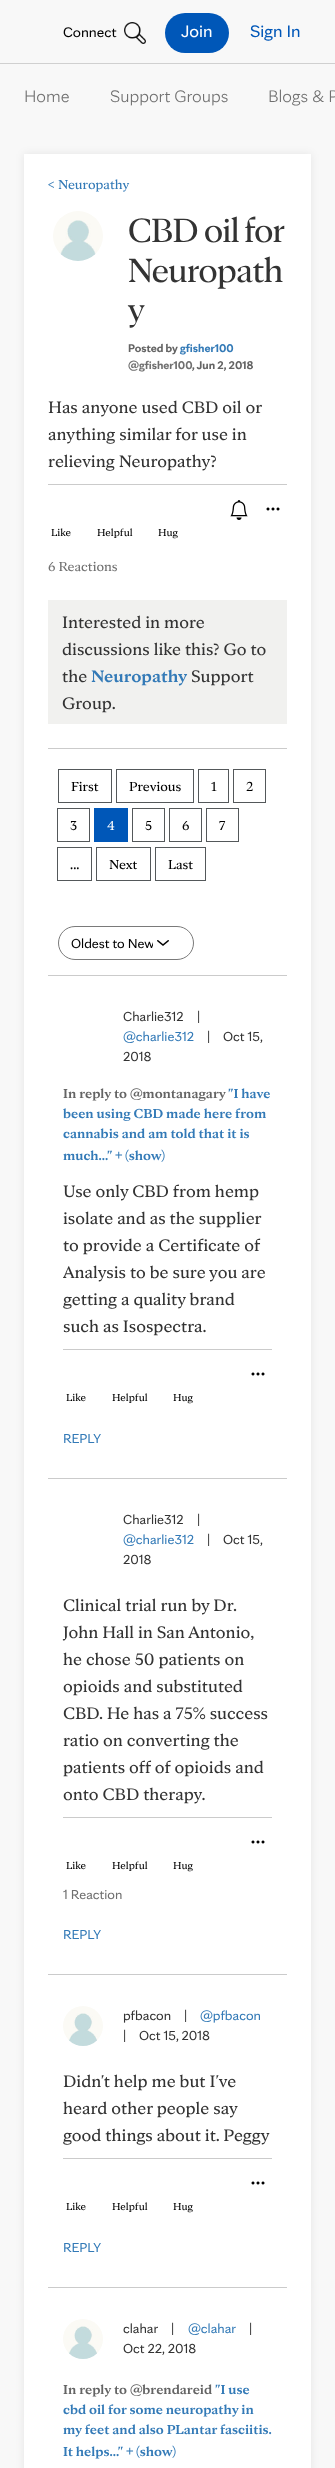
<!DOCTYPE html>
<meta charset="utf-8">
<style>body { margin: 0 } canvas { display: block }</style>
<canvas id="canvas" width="335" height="2468"></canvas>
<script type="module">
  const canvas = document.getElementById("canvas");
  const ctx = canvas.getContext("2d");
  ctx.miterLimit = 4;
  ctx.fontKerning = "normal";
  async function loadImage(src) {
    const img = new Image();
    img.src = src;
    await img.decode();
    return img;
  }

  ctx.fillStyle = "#f8f8f8";
  ctx.fillRect(0, 0, 335, 2468);
  ctx.fillStyle = "#d0d0d0";
  ctx.fillRect(0, 63, 335, 1);
  ctx.font = "15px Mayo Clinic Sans";
  ctx.fillStyle = "#000000";
  ctx.fillText("Connect", 63, 37);
  ctx.drawImage(await loadImage("img1.png"), 124, 22, 22, 22);
  ctx.fillStyle = "#0057b8";
  ctx.beginPath();
  ctx.roundRect(165, 13, 64, 40, 20);
  ctx.fill();
  ctx.font = "18px Mayo Clinic Sans";
  ctx.fillStyle = "#ffffff";
  ctx.fillText("Join", 181, 37);
  ctx.fillStyle = "#0057b8";
  ctx.fillText("Sign In", 250, 37);
  ctx.font = "300 18px Mayo Clinic Sans";
  ctx.fillStyle = "#707070";
  ctx.fillText("Home", 24, 102);
  ctx.fillText("Support Groups", 110, 102);
  ctx.fillText("Blogs & P", 268, 102);
  ctx.fillStyle = "rgba(0, 0, 0, 0.08)";
  ctx.filter = "blur(4px)";
  ctx.beginPath();
  ctx.rect(24, 154, 287, 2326);
  ctx.fill();
  ctx.filter = "none";
  ctx.fillStyle = "#ffffff";
  ctx.fillRect(24, 154, 287, 2314);
  ctx.font = "14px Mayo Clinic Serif";
  ctx.fillStyle = "#337ab7";
  ctx.fillText("< Neuropathy", 48, 189);
  ctx.drawImage(await loadImage("img2.png"), 53, 211, 50, 50);
  ctx.font = "36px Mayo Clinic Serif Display";
  ctx.fillStyle = "#333333";
  ctx.fillText("CBD", 128, 242);
  ctx.wordSpacing = "-1px";
  ctx.fillText("oil for", 204, 242);
  ctx.wordSpacing = "0px";
  ctx.fillText("Neuropath", 128, 282);
  ctx.fillText("y", 128, 321);
  ctx.font = "bold 12px Mayo Clinic Sans";
  ctx.fillStyle = "#646464";
  ctx.fillText("Posted by", 128, 352);
  ctx.fillStyle = "#337ab7";
  ctx.fillText("gfisher100", 180, 352);
  ctx.fillStyle = "#707070";
  ctx.fillText("@gfisher100", 128, 369);
  ctx.fillStyle = "#646464";
  ctx.fillText(", Jun 2, 2018", 192, 369);
  ctx.font = "18px Mayo Clinic Serif";
  ctx.fillStyle = "#333333";
  ctx.fillText("Has anyone used CBD oil or", 48, 413);
  ctx.fillText("anything similar for use in", 48, 440);
  ctx.fillText("relieving Neuropathy?", 48, 467);
  ctx.fillStyle = "#cbcbcb";
  ctx.fillRect(48, 484, 239, 1);
  ctx.drawImage(await loadImage("img3.png"), 230, 500, 18, 20);
  ctx.drawImage(await loadImage("img4.png"), 266, 507, 14, 4);
  ctx.font = "11px Mayo Clinic Serif";
  ctx.fillStyle = "#000000";
  ctx.fillText("Like", 51, 536);
  ctx.fillText("Helpful", 97, 536);
  ctx.fillText("Hug", 158, 536);
  ctx.font = "14px Mayo Clinic Serif";
  ctx.fillStyle = "#707070";
  ctx.fillText("6 Reactions", 48, 571);
  ctx.fillStyle = "#f1f1ef";
  ctx.fillRect(48, 600, 239, 124);
  ctx.font = "18px Mayo Clinic Serif";
  ctx.fillStyle = "#333333";
  ctx.fillText("Interested in more", 62, 628);
  ctx.fillText("discussions like this? Go to", 62, 655);
  ctx.fillText("the", 62, 682);
  ctx.font = "bold 18px Mayo Clinic Serif";
  ctx.fillStyle = "#337ab7";
  ctx.fillText("Neuropathy", 91, 682);
  ctx.font = "18px Mayo Clinic Serif";
  ctx.fillStyle = "#333333";
  ctx.fillText("Support", 191, 682);
  ctx.fillText("Group.", 62, 709);
  ctx.fillStyle = "#cbcbcb";
  ctx.fillRect(48, 748, 239, 1);
  ctx.strokeStyle = "#54585a";
  ctx.strokeRect(58.5, 769.5, 53, 33);
  ctx.font = "14px Mayo Clinic Serif";
  ctx.fillStyle = "#000000";
  ctx.fillText("First", 71, 791);
  ctx.strokeRect(116.5, 769.5, 77, 33);
  ctx.fillText("Previous", 129, 791);
  ctx.strokeRect(198.5, 769.5, 30, 33);
  ctx.fillText("1", 211, 791);
  ctx.strokeRect(233.5, 769.5, 32, 33);
  ctx.fillText("2", 246, 791);
  ctx.strokeRect(57.5, 808.5, 32, 33);
  ctx.fillText("3", 70, 830);
  ctx.fillStyle = "#0057b8";
  ctx.fillRect(94, 808, 34, 34);
  ctx.fillStyle = "#ffffff";
  ctx.fillText("4", 107, 830);
  ctx.strokeRect(132.5, 808.5, 32, 33);
  ctx.fillStyle = "#000000";
  ctx.fillText("5", 145, 830);
  ctx.strokeRect(169.5, 808.5, 32, 33);
  ctx.fillText("6", 182, 830);
  ctx.strokeRect(206.5, 808.5, 32, 33);
  ctx.fillText("7", 219, 830);
  ctx.strokeRect(57.5, 847.5, 34, 33);
  ctx.fillText("...", 70, 869);
  ctx.strokeRect(96.5, 847.5, 54, 33);
  ctx.fillText("Next", 109, 869);
  ctx.strokeRect(155.5, 847.5, 50, 33);
  ctx.fillText("Last", 168, 869);
  ctx.drawImage(await loadImage("img5.png"), 157, 940, 12, 6);
  ctx.beginPath();
  ctx.roundRect(58.5, 926.5, 135, 33, 16.5);
  ctx.strokeStyle = "#7a7a7a";
  ctx.stroke();
  ctx.save();
  ctx.beginPath();
  ctx.rect(71, 933, 82, 20);
  ctx.clip();
  ctx.font = "14px Mayo Clinic Sans";
  ctx.fillText("Oldest to New", 71, 948);
  ctx.restore();
  ctx.fillStyle = "#cbcbcb";
  ctx.fillRect(48, 975, 239, 1);
  ctx.font = "14px Mayo Clinic Sans";
  ctx.fillStyle = "#333333";
  ctx.fillText("Charlie312", 123, 1021);
  ctx.fillText("|", 197, 1021);
  ctx.fillStyle = "#337ab7";
  ctx.fillText("@charlie312", 123, 1041);
  ctx.fillStyle = "#333333";
  ctx.fillText("|", 207, 1041);
  ctx.fillText("Oct 15,", 223, 1041);
  ctx.fillText("2018", 123, 1061);
  ctx.font = "bold 14px Mayo Clinic Serif";
  ctx.fillStyle = "#646464";
  ctx.fillText("In reply to @montanagary", 63, 1098);
  ctx.fillStyle = "#337ab7";
  ctx.fillText("\"I have", 228, 1098);
  ctx.fillText("been using CBD made here from", 63, 1118);
  ctx.fillText("cannabis and am told that it is", 63, 1138);
  ctx.fillText("much...\"", 63, 1160);
  ctx.font = "bold 16px Mayo Clinic Serif";
  ctx.fillText("+", 115, 1160);
  ctx.font = "bold 14px Mayo Clinic Serif";
  ctx.fillText("(show)", 125, 1160);
  ctx.font = "18px Mayo Clinic Serif";
  ctx.fillStyle = "#333333";
  ctx.fillText("Use only CBD from hemp", 63, 1197);
  ctx.fillText("isolate and as the supplier", 63, 1224);
  ctx.fillText("to provide a Certificate of", 63, 1251);
  ctx.fillText("Analysis to be sure you are", 63, 1278);
  ctx.fillText("getting a quality brand", 63, 1305);
  ctx.fillText("such as Isospectra.", 63, 1332);
  ctx.fillStyle = "#cbcbcb";
  ctx.fillRect(63, 1349, 209, 1);
  ctx.drawImage(await loadImage("img4.png"), 251, 1372, 14, 4);
  ctx.font = "11px Mayo Clinic Serif";
  ctx.fillStyle = "#000000";
  ctx.fillText("Like", 66, 1401);
  ctx.fillText("Helpful", 112, 1401);
  ctx.fillText("Hug", 173, 1401);
  ctx.font = "14px Mayo Clinic Sans";
  ctx.fillStyle = "#337ab7";
  ctx.fillText("REPLY", 63, 1443);
  ctx.fillStyle = "#cbcbcb";
  ctx.fillRect(48, 1478, 239, 1);
  ctx.fillStyle = "#333333";
  ctx.fillText("Charlie312", 123, 1524);
  ctx.fillText("|", 197, 1524);
  ctx.fillStyle = "#337ab7";
  ctx.fillText("@charlie312", 123, 1544);
  ctx.fillStyle = "#333333";
  ctx.fillText("|", 207, 1544);
  ctx.fillText("Oct 15,", 223, 1544);
  ctx.fillText("2018", 123, 1564);
  ctx.font = "18px Mayo Clinic Serif";
  ctx.fillText("Clinical trial run by Dr.", 63, 1611);
  ctx.fillText("John Hall in San Antonio,", 63, 1638);
  ctx.fillText("he chose 50 patients on", 63, 1665);
  ctx.fillText("opioids and substituted", 63, 1692);
  ctx.fillText("CBD. He has a 75% success", 63, 1719);
  ctx.fillText("ratio on converting the", 63, 1746);
  ctx.fillText("patients off of opioids and", 63, 1773);
  ctx.fillText("onto CBD therapy.", 63, 1800);
  ctx.fillStyle = "#cbcbcb";
  ctx.fillRect(63, 1817, 209, 1);
  ctx.drawImage(await loadImage("img4.png"), 251, 1840, 14, 4);
  ctx.font = "11px Mayo Clinic Serif";
  ctx.fillStyle = "#000000";
  ctx.fillText("Like", 66, 1869);
  ctx.fillText("Helpful", 112, 1869);
  ctx.fillText("Hug", 173, 1869);
  ctx.font = "14px Mayo Clinic Sans";
  ctx.fillStyle = "#707070";
  ctx.fillText("1 Reaction", 63, 1899);
  ctx.fillStyle = "#337ab7";
  ctx.fillText("REPLY", 63, 1939);
  ctx.fillStyle = "#cbcbcb";
  ctx.fillRect(48, 1974, 239, 1);
  ctx.drawImage(await loadImage("img6.png"), 63, 2006, 40, 40);
  ctx.fillStyle = "#333333";
  ctx.fillText("pfbacon", 123, 2020);
  ctx.fillText("|", 184, 2020);
  ctx.fillStyle = "#337ab7";
  ctx.fillText("@pfbacon", 200, 2020);
  ctx.fillStyle = "#333333";
  ctx.fillText("|", 123, 2040);
  ctx.fillText("Oct 15, 2018", 139, 2040);
  ctx.font = "18px Mayo Clinic Serif";
  ctx.fillText("Didn't help me but I've", 63, 2087);
  ctx.fillText("heard other people say", 63, 2114);
  ctx.fillText("good things about it. Peggy", 63, 2141);
  ctx.fillStyle = "#cbcbcb";
  ctx.fillRect(63, 2158, 209, 1);
  ctx.drawImage(await loadImage("img4.png"), 251, 2181, 14, 4);
  ctx.font = "11px Mayo Clinic Serif";
  ctx.fillStyle = "#000000";
  ctx.fillText("Like", 66, 2210);
  ctx.fillText("Helpful", 112, 2210);
  ctx.fillText("Hug", 173, 2210);
  ctx.font = "14px Mayo Clinic Sans";
  ctx.fillStyle = "#337ab7";
  ctx.fillText("REPLY", 63, 2252);
  ctx.fillStyle = "#cbcbcb";
  ctx.fillRect(48, 2287, 239, 1);
  ctx.drawImage(await loadImage("img7.png"), 63, 2319, 40, 40);
  ctx.fillStyle = "#333333";
  ctx.fillText("clahar", 123, 2333);
  ctx.fillText("|", 171, 2333);
  ctx.fillStyle = "#337ab7";
  ctx.fillText("@clahar", 188, 2333);
  ctx.fillStyle = "#333333";
  ctx.fillText("|", 249, 2333);
  ctx.fillText("Oct 22, 2018", 123, 2353);
  ctx.font = "bold 14px Mayo Clinic Serif";
  ctx.fillStyle = "#646464";
  ctx.fillText("In reply to @brendareid", 63, 2394);
  ctx.fillStyle = "#337ab7";
  ctx.fillText("\"I use", 215, 2394);
  ctx.fillText("cbd oil for some neuropathy in", 63, 2414);
  ctx.fillText("my feet and also PLantar fasciitis.", 63, 2434);
  ctx.fillText("It helps...\"", 63, 2456);
  ctx.font = "bold 16px Mayo Clinic Serif";
  ctx.fillText("+", 126, 2456);
  ctx.font = "bold 14px Mayo Clinic Serif";
  ctx.fillText("(show)", 136, 2456);
</script>
